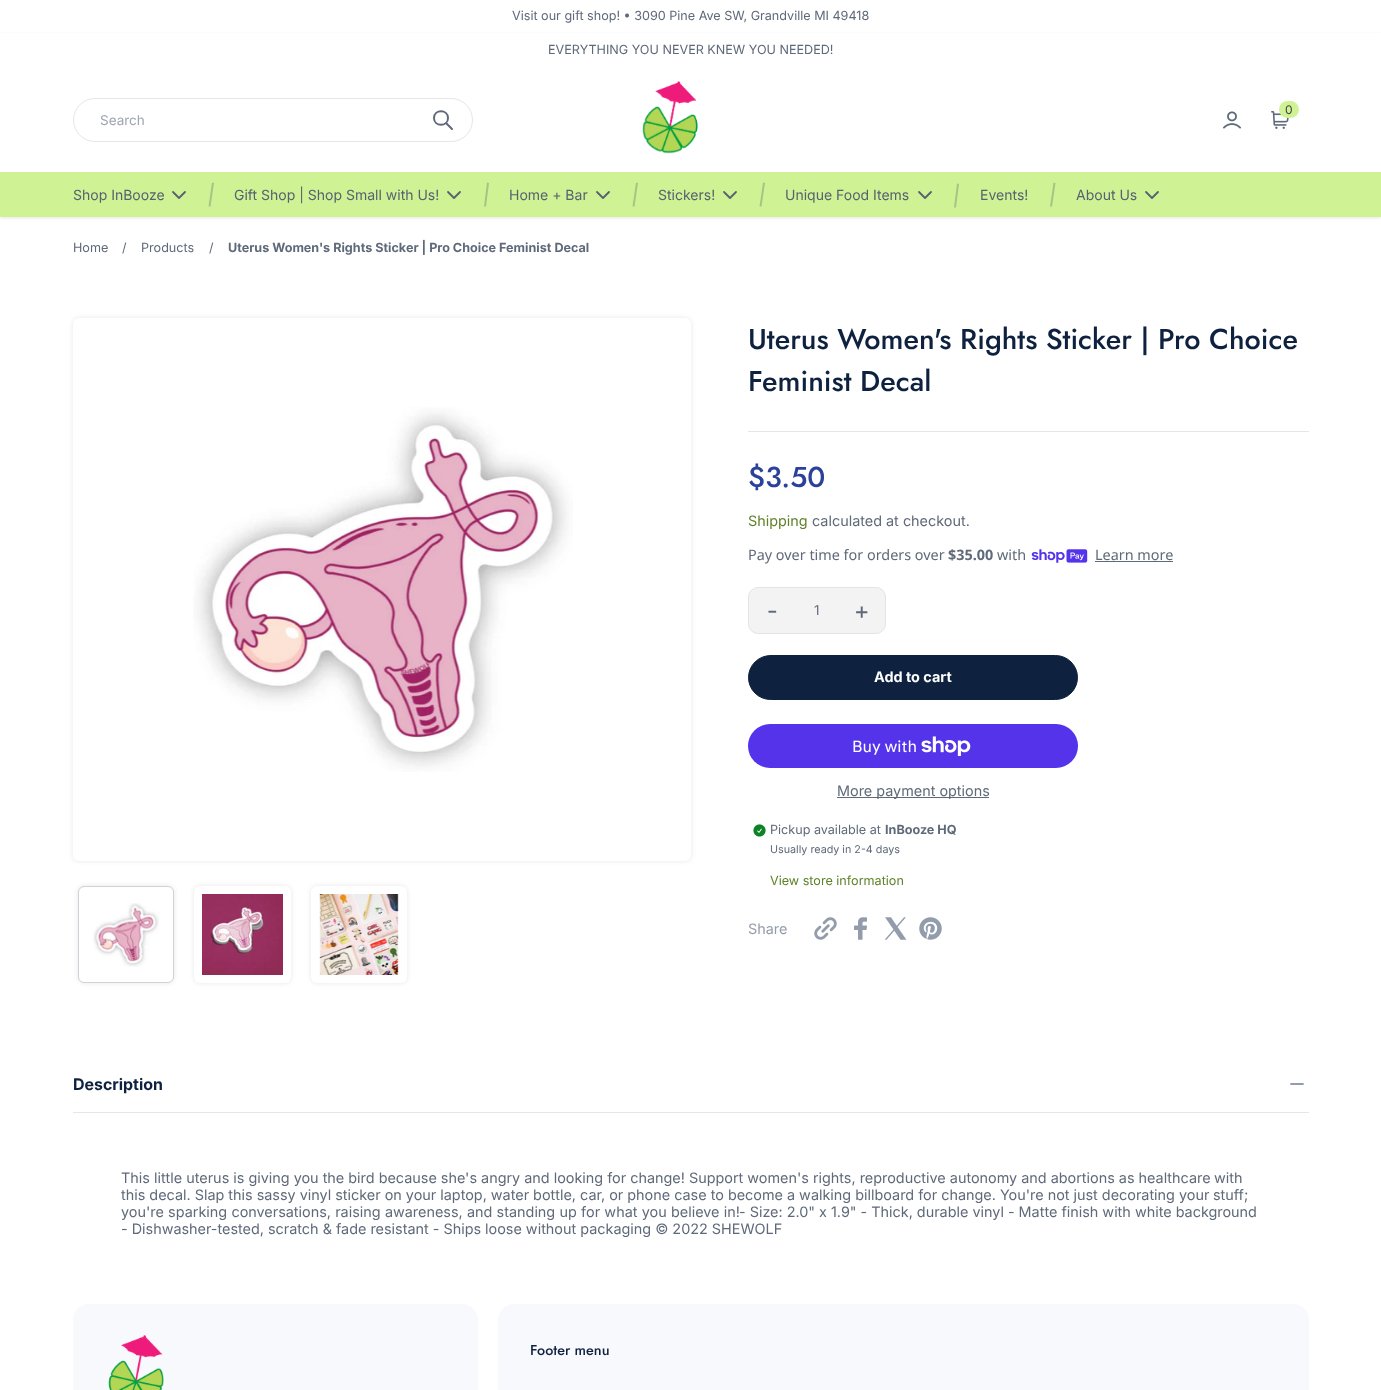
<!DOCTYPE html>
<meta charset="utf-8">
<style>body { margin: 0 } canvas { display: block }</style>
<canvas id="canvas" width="1381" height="1390"></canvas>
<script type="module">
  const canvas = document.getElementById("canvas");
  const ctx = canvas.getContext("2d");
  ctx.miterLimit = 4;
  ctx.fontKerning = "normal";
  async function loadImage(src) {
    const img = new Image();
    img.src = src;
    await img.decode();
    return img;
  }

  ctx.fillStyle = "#ffffff";
  ctx.fillRect(0, 0, 1381, 1390);
  ctx.font = "12.6px Inter";
  ctx.fillStyle = "#5e6979";
  ctx.fillText("Visit our gift shop! • 3090 Pine Ave SW, Grandville MI 49418", 512, 20);
  ctx.fillStyle = "rgba(0, 0, 0, 0.1)";
  ctx.filter = "blur(1.5px)";
  ctx.beginPath();
  ctx.rect(0, 34, 1381, 184);
  ctx.fill();
  ctx.filter = "none";
  ctx.fillStyle = "#ffffff";
  ctx.fillRect(0, 33, 1381, 139);
  ctx.fillStyle = "#5e6979";
  ctx.fillText("EVERYTHING YOU NEVER KNEW YOU NEEDED!", 548, 54);
  ctx.drawImage(await loadImage("img1.png"), 642, 81, 56, 73);
  ctx.drawImage(await loadImage("img2.png"), 1271, 111, 18, 18);
  ctx.fillStyle = "#cff394";
  ctx.beginPath();
  ctx.roundRect(1279, 101, 20, 17, 8.5);
  ctx.fill();
  ctx.font = "12px Inter";
  ctx.fillStyle = "#3d3d3d";
  ctx.fillText("0", 1285, 114);
  ctx.drawImage(await loadImage("img3.png"), 1223, 111, 18, 18);
  ctx.beginPath();
  ctx.roundRect(73.5, 98.5, 399, 43, 21.5);
  ctx.strokeStyle = "#e6e6e6";
  ctx.stroke();
  ctx.font = "13.5px Inter";
  ctx.fillStyle = "#9ea5af";
  ctx.fillText("Search", 100, 125);
  ctx.beginPath();
  ctx.moveTo(452, 129);
  ctx.lineTo(446, 123);
  ctx.moveTo(448, 118);
  ctx.bezierCurveTo(448, 127, 434, 127, 434, 118);
  ctx.bezierCurveTo(434, 109, 448, 109, 448, 118);
  ctx.closePath();
  ctx.strokeStyle = "#5e6979";
  ctx.lineWidth = 2;
  ctx.lineCap = "round";
  ctx.lineJoin = "round";
  ctx.stroke();
  ctx.fillStyle = "#cff394";
  ctx.fillRect(0, 172, 1381, 45);
  ctx.font = "14px Inter";
  ctx.fillStyle = "#576170";
  ctx.fillText("Shop InBooze", 73, 200);
  ctx.beginPath();
  ctx.moveTo(173, 192);
  ctx.lineTo(179, 198);
  ctx.lineTo(185, 192);
  ctx.strokeStyle = "#576170";
  ctx.lineWidth = 1.8;
  ctx.stroke();
  ctx.fillStyle = "#a7c388";
  ctx.beginPath();
  ctx.moveTo(212, 182.5);
  ctx.lineTo(214, 183);
  ctx.lineTo(210.5, 206.5);
  ctx.lineTo(208.5, 206.5);
  ctx.closePath();
  ctx.fill();
  ctx.fillStyle = "#576170";
  ctx.fillText("Gift Shop | Shop Small with Us!", 234, 200);
  ctx.beginPath();
  ctx.moveTo(448, 192);
  ctx.lineTo(454, 198);
  ctx.lineTo(460, 192);
  ctx.stroke();
  ctx.fillStyle = "#a7c388";
  ctx.beginPath();
  ctx.moveTo(487, 182.5);
  ctx.lineTo(489, 183);
  ctx.lineTo(486, 206.5);
  ctx.lineTo(484, 206.5);
  ctx.closePath();
  ctx.fill();
  ctx.fillStyle = "#576170";
  ctx.fillText("Home + Bar", 509, 200);
  ctx.beginPath();
  ctx.moveTo(597, 192);
  ctx.lineTo(603, 198);
  ctx.lineTo(609, 192);
  ctx.stroke();
  ctx.fillStyle = "#a7c388";
  ctx.beginPath();
  ctx.moveTo(636, 182.5);
  ctx.lineTo(638, 183);
  ctx.lineTo(634.5, 206.5);
  ctx.lineTo(632.5, 206.5);
  ctx.closePath();
  ctx.fill();
  ctx.fillStyle = "#576170";
  ctx.fillText("Stickers!", 658, 200);
  ctx.beginPath();
  ctx.moveTo(724, 192);
  ctx.lineTo(730, 198);
  ctx.lineTo(736, 192);
  ctx.stroke();
  ctx.fillStyle = "#a7c388";
  ctx.beginPath();
  ctx.moveTo(763, 182.5);
  ctx.lineTo(765, 183);
  ctx.lineTo(761.5, 206.5);
  ctx.lineTo(759.5, 206.5);
  ctx.closePath();
  ctx.fill();
  ctx.fillStyle = "#576170";
  ctx.fillText("Unique Food Items", 785, 200);
  ctx.beginPath();
  ctx.moveTo(919, 192);
  ctx.lineTo(925, 198);
  ctx.lineTo(931, 192);
  ctx.stroke();
  ctx.fillStyle = "#a7c388";
  ctx.beginPath();
  ctx.moveTo(957, 183.5);
  ctx.lineTo(959, 184);
  ctx.lineTo(956, 207.5);
  ctx.lineTo(954, 207.5);
  ctx.closePath();
  ctx.fill();
  ctx.fillStyle = "#576170";
  ctx.fillText("Events!", 980, 200);
  ctx.fillStyle = "#a7c388";
  ctx.beginPath();
  ctx.moveTo(1053.5, 182.5);
  ctx.lineTo(1055.5, 183);
  ctx.lineTo(1052, 206.5);
  ctx.lineTo(1050, 206.5);
  ctx.closePath();
  ctx.fill();
  ctx.fillStyle = "#576170";
  ctx.fillText("About Us", 1076, 200);
  ctx.beginPath();
  ctx.moveTo(1146, 192);
  ctx.lineTo(1152, 198);
  ctx.lineTo(1158, 192);
  ctx.stroke();
  ctx.font = "12.6px Inter";
  ctx.fillStyle = "#5e6979";
  ctx.fillText("Home", 73, 252);
  ctx.fillText("/", 122, 252);
  ctx.fillText("Products", 141, 252);
  ctx.fillText("/", 209, 252);
  ctx.font = "bold 12.6px Inter";
  ctx.fillText("Uterus Women's Rights Sticker | Pro Choice Feminist Decal", 228, 252);
  ctx.fillStyle = "#e6e6e6";
  ctx.filter = "blur(2.5px)";
  ctx.beginPath();
  ctx.roundRect(73, 318, 618, 543, 6);
  ctx.fill();
  ctx.filter = "none";
  ctx.fillStyle = "#ffffff";
  ctx.beginPath();
  ctx.roundRect(73, 318, 618, 543, 6);
  ctx.fill();
  ctx.drawImage(await loadImage("img4.png"), 193, 407, 380, 365);
  ctx.fillStyle = "#e6e6e6";
  ctx.filter = "blur(2.5px)";
  ctx.beginPath();
  ctx.roundRect(78, 886, 96, 97, 6);
  ctx.fill();
  ctx.filter = "none";
  ctx.fillStyle = "#ffffff";
  ctx.beginPath();
  ctx.roundRect(78.5, 886.5, 95, 96, 5.5);
  ctx.fill();
  ctx.strokeStyle = "#cfd2d7";
  ctx.lineWidth = 1;
  ctx.lineJoin = "miter";
  ctx.stroke();
  ctx.drawImage(await loadImage("img5.png"), 93, 903, 66, 64);
  ctx.fillStyle = "#e6e6e6";
  ctx.filter = "blur(2.5px)";
  ctx.beginPath();
  ctx.roundRect(194, 886, 97, 97, 6);
  ctx.fill();
  ctx.filter = "none";
  ctx.fillStyle = "#ffffff";
  ctx.beginPath();
  ctx.roundRect(194, 886, 97, 97, 6);
  ctx.fill();
  ctx.drawImage(await loadImage("img6.png"), 202, 894, 81, 81);
  ctx.fillStyle = "#e6e6e6";
  ctx.filter = "blur(2.5px)";
  ctx.beginPath();
  ctx.roundRect(311, 886, 96, 97, 6);
  ctx.fill();
  ctx.filter = "none";
  ctx.fillStyle = "#ffffff";
  ctx.beginPath();
  ctx.roundRect(311, 886, 96, 97, 6);
  ctx.fill();
  ctx.drawImage(await loadImage("img7.png"), 319, 894, 80, 81);
  ctx.font = "500 28.75px Jost";
  ctx.fillStyle = "#0e2240";
  ctx.fillText("Uterus Women's Rights Sticker | Pro Choice", 748, 349);
  ctx.fillText("Feminist Decal", 748, 391);
  ctx.fillStyle = "#e6e6e6";
  ctx.fillRect(748, 431, 561, 1);
  ctx.fillStyle = "#2b419b";
  ctx.fillText("$3.50", 748, 487);
  ctx.font = "14.4px Inter";
  ctx.fillStyle = "#5f8128";
  ctx.fillText("Shipping", 748, 526);
  ctx.fillStyle = "#5e6979";
  ctx.fillText("calculated at checkout.", 812, 526);
  ctx.font = "14.4px Noto Sans";
  ctx.fillText("Pay over time for orders over", 748, 560);
  ctx.font = "bold 14.4px Noto Sans";
  ctx.fillText("$35.00", 948, 560);
  ctx.font = "14.4px Noto Sans";
  ctx.fillText("with", 997, 560);
  ctx.drawImage(await loadImage("img8.png"), 1031, 549, 57, 14);
  ctx.fillText("Learn more", 1095, 560);
  ctx.fillRect(1095, 561, 78, 1);
  ctx.fillStyle = "#f3f3f3";
  ctx.beginPath();
  ctx.roundRect(748.5, 587.5, 137, 46, 9.5);
  ctx.fill();
  ctx.strokeStyle = "#e2e4e8";
  ctx.stroke();
  ctx.font = "24px 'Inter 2'";
  ctx.fillStyle = "#5e6979";
  ctx.fillText("-", 767, 619);
  ctx.font = "13.5px Inter";
  ctx.fillText("1", 814, 615);
  ctx.font = "24px 'Inter 2'";
  ctx.fillText("+", 854, 619);
  ctx.fillStyle = "#0e2240";
  ctx.beginPath();
  ctx.roundRect(748.5, 655.5, 329, 44, 22);
  ctx.fill();
  ctx.strokeStyle = "#0e2240";
  ctx.stroke();
  ctx.font = "bold 14.4px Inter";
  ctx.fillStyle = "#ffffff";
  ctx.fillText("Add to cart", 874, 682);
  ctx.fillStyle = "#5433eb";
  ctx.beginPath();
  ctx.roundRect(748, 724, 330, 44, 22);
  ctx.fill();
  ctx.font = "16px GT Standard";
  ctx.fillStyle = "#ffffff";
  ctx.fillText("Buy with", 852, 752);
  ctx.drawImage(await loadImage("img9.png"), 921, 736, 50, 20);
  ctx.fillStyle = "#5e6979";
  ctx.fillRect(837, 797, 152, 1);
  ctx.font = "14.4px Inter";
  ctx.fillText("More payment options", 837, 796);
  ctx.drawImage(await loadImage("img10.png"), 753, 824, 13, 13);
  ctx.font = "12.6px Inter";
  ctx.fillText("Pickup available at", 770, 834);
  ctx.font = "bold 12.6px Inter";
  ctx.fillText("InBooze HQ", 885, 834);
  ctx.font = "10.75px Inter";
  ctx.fillText("Usually ready in 2-4 days", 770, 853);
  ctx.font = "12.6px Inter";
  ctx.fillStyle = "#5f8128";
  ctx.fillText("View store information", 770, 885);
  ctx.font = "14.4px Inter";
  ctx.fillStyle = "#929cab";
  ctx.fillText("Share", 748, 934);
  ctx.drawImage(await loadImage("img11.png"), 814, 917, 23, 23);
  ctx.drawImage(await loadImage("img12.png"), 854, 917, 13, 23);
  ctx.drawImage(await loadImage("img13.png"), 884, 917, 23, 23);
  ctx.drawImage(await loadImage("img14.png"), 919, 917, 23, 23);
  ctx.fillStyle = "#e6e6e6";
  ctx.fillRect(73, 1112, 1236, 1);
  ctx.font = "bold 16px 'Inter 2'";
  ctx.fillStyle = "#0e2240";
  ctx.fillText("Description", 73, 1090);
  ctx.beginPath();
  ctx.moveTo(1291, 1084);
  ctx.lineTo(1303, 1084);
  ctx.strokeStyle = "#929cab";
  ctx.lineWidth = 1.8;
  ctx.lineJoin = "round";
  ctx.stroke();
  ctx.font = "14.4px Inter";
  ctx.fillStyle = "#5e6979";
  ctx.fillText("This little uterus is giving you the bird because she's angry and looking for change! Support women's rights, reproductive autonomy and abortions as healthcare", 121, 1183);
  ctx.fillText("with", 1214, 1183);
  ctx.fillText("this decal. Slap this sassy vinyl sticker on your laptop, water bottle, car, or phone case to become a walking billboard for change. You're not just decorating your", 121, 1200);
  ctx.fillText("stuff;", 1213, 1200);
  ctx.wordSpacing = "0.25px";
  ctx.fillText("you're sparking conversations, raising awareness, and standing up for what you believe in!", 121, 1217);
  ctx.wordSpacing = "0px";
  ctx.fillText("- Size: 2.0\" x 1.9\" - Thick, durable vinyl - Matte finish with white background", 739, 1217);
  ctx.fillText("- Dishwasher-tested, scratch & fade resistant - Ships loose without packaging © 2022 SHEWOLF", 121, 1234);
  ctx.fillStyle = "#f8f9fd";
  ctx.beginPath();
  ctx.roundRect(73, 1304, 405, 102, 16);
  ctx.fill();
  ctx.drawImage(await loadImage("img15.png"), 108, 1335, 56, 55);
  ctx.beginPath();
  ctx.roundRect(498, 1304, 811, 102, 16);
  ctx.fill();
  ctx.font = "500 14.4px Jost";
  ctx.fillStyle = "#0e2240";
  ctx.fillText("Footer menu", 530, 1355);
</script>
